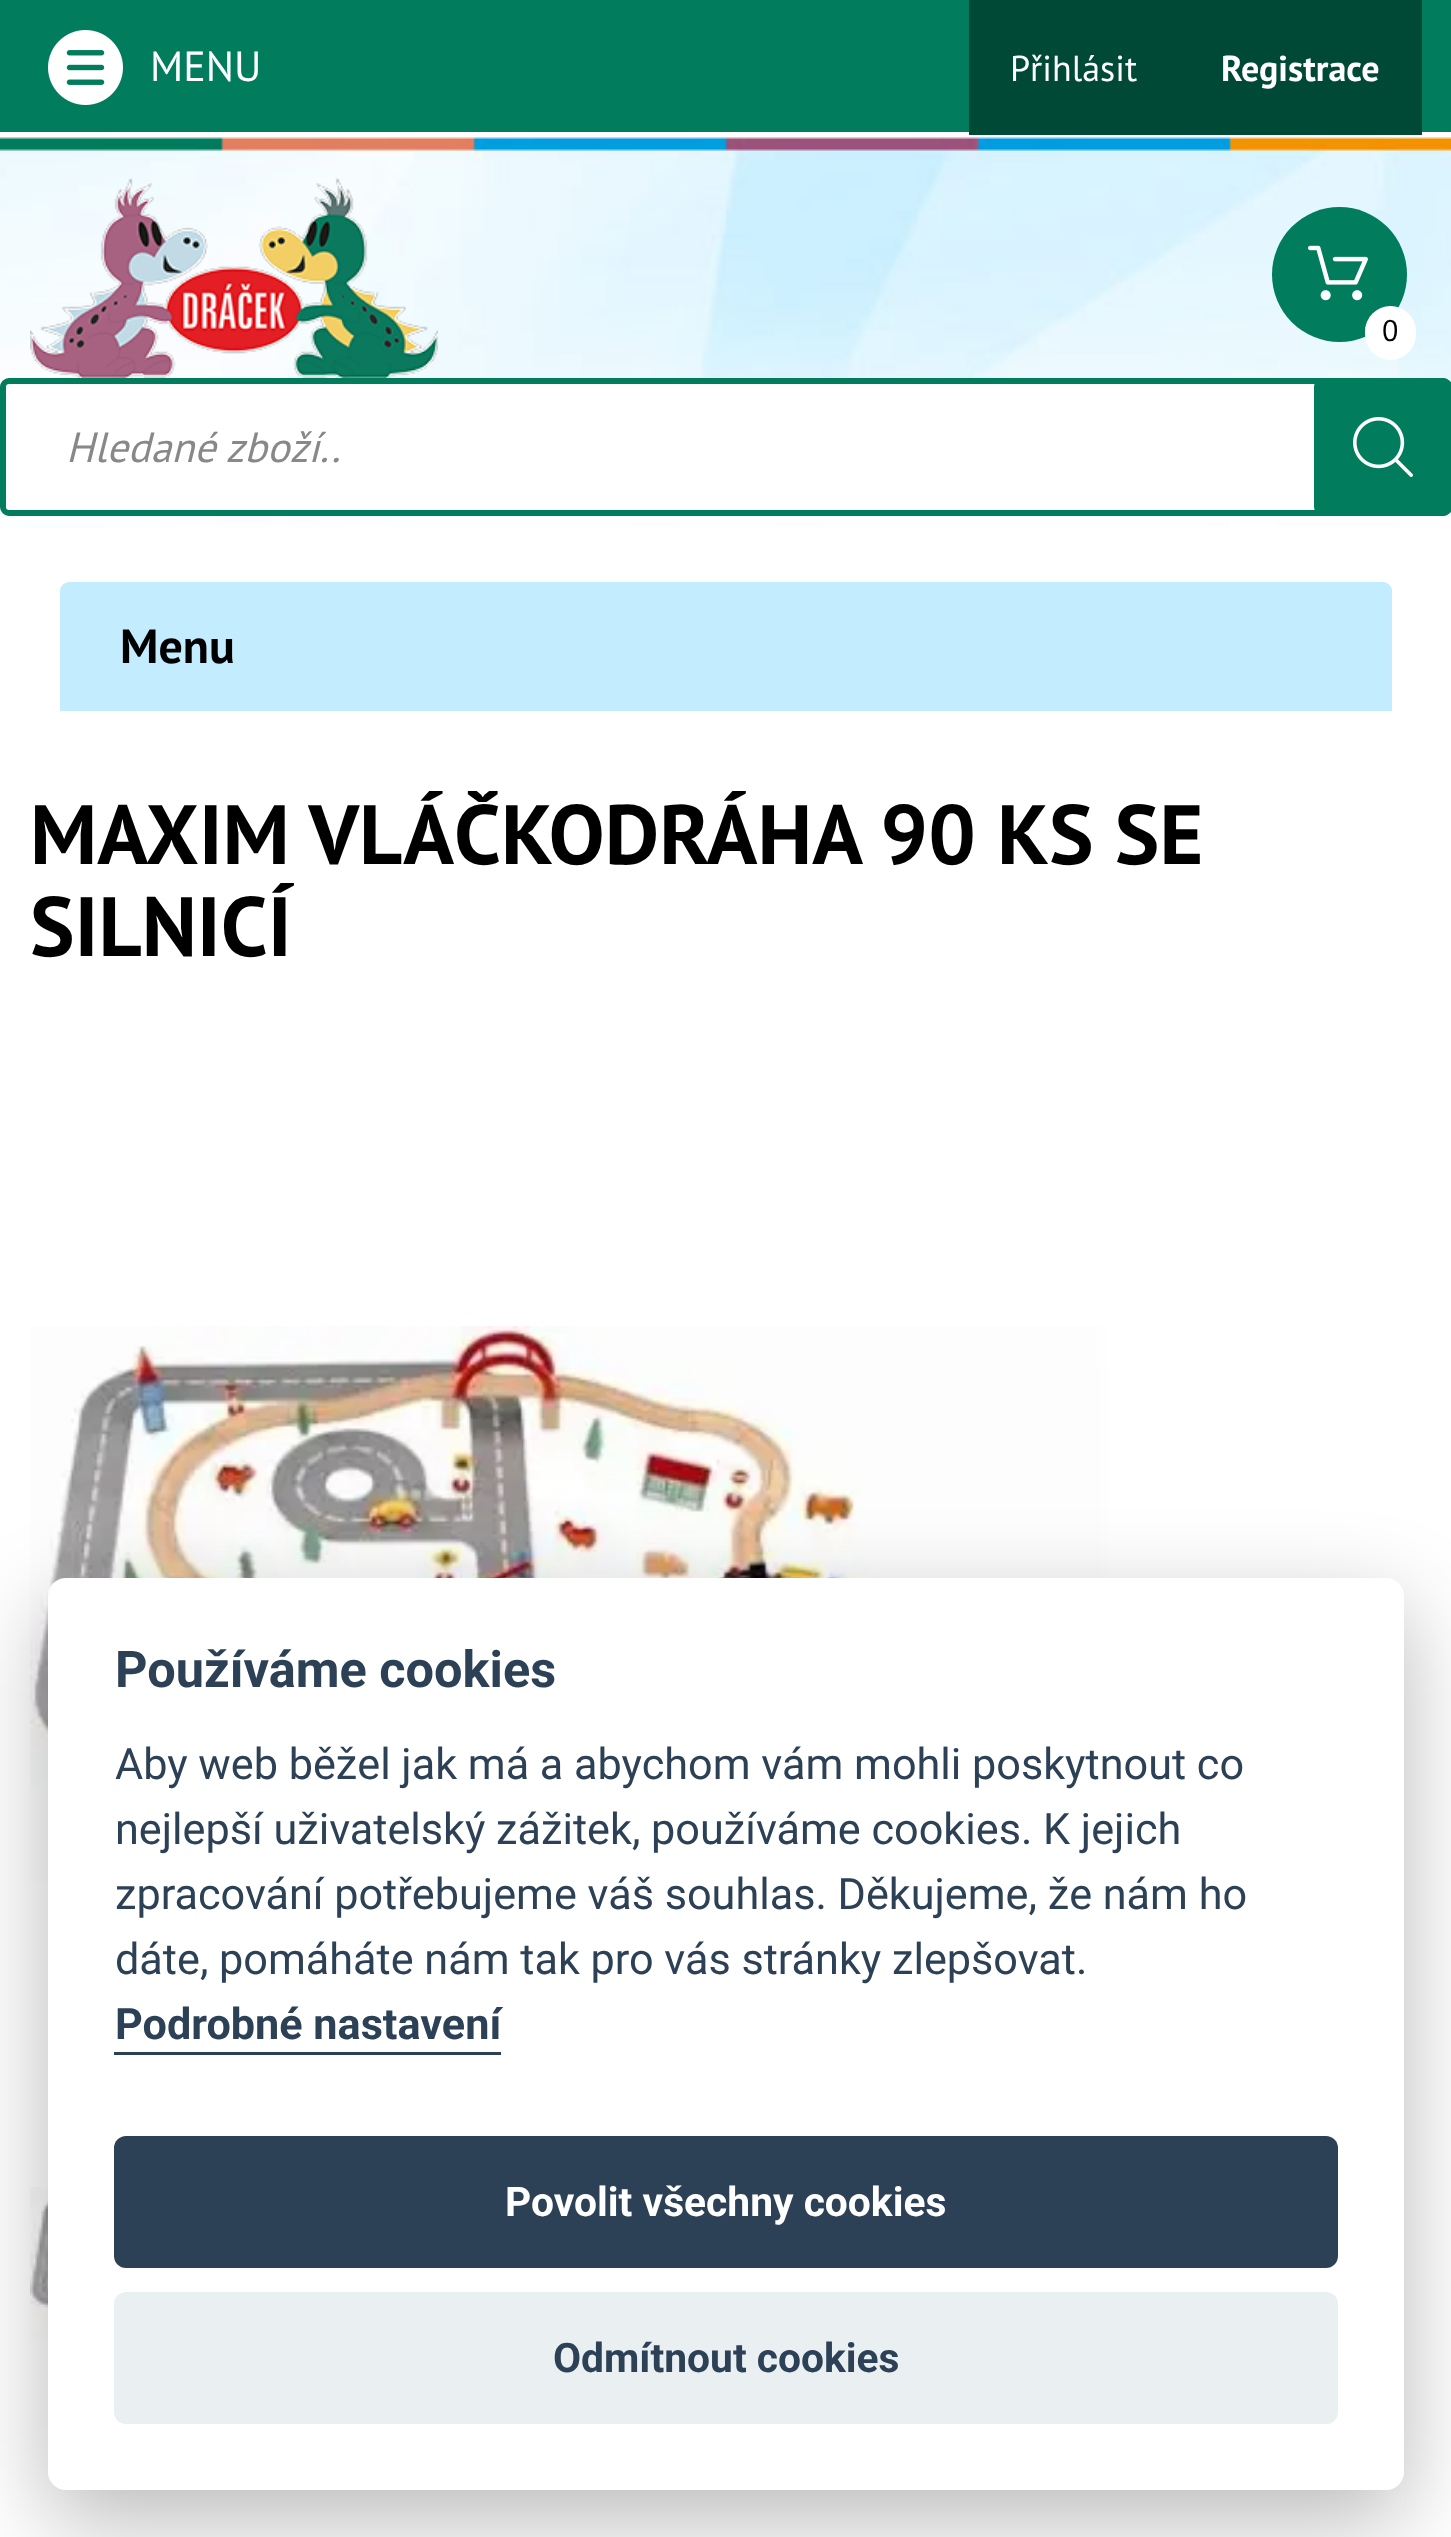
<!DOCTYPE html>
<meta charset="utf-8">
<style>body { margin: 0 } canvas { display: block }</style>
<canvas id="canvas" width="1451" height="2537"></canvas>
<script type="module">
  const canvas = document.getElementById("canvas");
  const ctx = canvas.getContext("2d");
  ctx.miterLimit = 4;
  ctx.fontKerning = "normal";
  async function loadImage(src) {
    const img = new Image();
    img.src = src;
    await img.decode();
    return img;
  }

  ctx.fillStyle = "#ffffff";
  ctx.fillRect(0, 0, 1451, 2537);
  ctx.drawImage(await loadImage("img1.png"), 0, 137, 1451, 391);
  ctx.fillStyle = "#017c5d";
  ctx.fillRect(0, 0, 1451, 132);
  ctx.drawImage(await loadImage("img2.png"), 48, 30, 75, 75);
  ctx.font = "42px PT Sans";
  ctx.fillStyle = "#ffffff";
  ctx.fillText("MENU", 150, 81);
  ctx.fillStyle = "#014937";
  ctx.fillRect(969, 0, 453, 135);
  ctx.font = "36px PT Sans";
  ctx.fillStyle = "#ffffff";
  ctx.fillText("Přihlásit", 1010, 81);
  ctx.font = "bold 36px PT Sans";
  ctx.fillText("Registrace", 1221, 81);
  ctx.drawImage(await loadImage("img3.png"), 30, 178, 408, 200);
  ctx.fillStyle = "#017c5d";
  ctx.beginPath();
  ctx.arc(1339.5, 274.5, 67.5, 0, Math.PI * 2);
  ctx.fill();
  ctx.drawImage(await loadImage("img4.png"), 1308, 245, 60, 56);
  ctx.fillStyle = "#ffffff";
  ctx.beginPath();
  ctx.roundRect(1365, 306, 51, 54, 25.5);
  ctx.fill();
  ctx.font = "30px PT Sans";
  ctx.fillStyle = "#000000";
  ctx.fillText("0", 1382, 341);
  ctx.fillStyle = "#ffffff";
  ctx.beginPath();
  ctx.roundRect(3, 381, 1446, 132, 6);
  ctx.fill();
  ctx.strokeStyle = "#017c5d";
  ctx.lineWidth = 6;
  ctx.stroke();
  ctx.font = "italic 42px PT Sans";
  ctx.fillStyle = "#888888";
  ctx.fillText("Hledané zboží..", 66, 462);
  ctx.fillStyle = "#017c5d";
  ctx.beginPath();
  ctx.roundRect(1314, 378, 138, 138, 9);
  ctx.fill();
  ctx.drawImage(await loadImage("img5.png"), 1353, 417, 60, 60);
  ctx.fillStyle = "#c3edff";
  ctx.beginPath();
  ctx.roundRect(60, 582, 1332, 129, [9, 9, 0, 0]);
  ctx.fill();
  ctx.font = "bold 48px PT Sans";
  ctx.fillStyle = "#000000";
  ctx.fillText("Menu", 120, 663);
  ctx.font = "bold 84px PT Sans";
  ctx.fillText("MAXIM VLÁČKODRÁHA 90 KS SE", 30, 864);
  ctx.fillText("SILNICÍ", 30, 956);
  ctx.drawImage(await loadImage("img6.png"), 30, 1326, 1080, 555);
  ctx.drawImage(await loadImage("img7.png"), 30, 2187, 18, 153);
  ctx.fillStyle = "rgba(2, 2, 3, 0.28)";
  ctx.filter = "blur(45px)";
  ctx.beginPath();
  ctx.roundRect(48, 1608, 1356, 912, 18);
  ctx.fill();
  ctx.filter = "none";
  ctx.fillStyle = "#ffffff";
  ctx.beginPath();
  ctx.roundRect(48, 1578, 1356, 912, 18);
  ctx.fill();
  ctx.font = "bold 50.5px Roboto";
  ctx.fillStyle = "#2d4156";
  ctx.fillText("Používáme cookies", 115, 1687);
  ctx.font = "43.2px Roboto";
  ctx.fillText("Aby web běžel jak má a abychom vám mohli poskytnout co", 115, 1779);
  ctx.fillText("nejlepší uživatelský zážitek, používáme cookies. K jejich", 115, 1844);
  ctx.fillText("zpracování potřebujeme váš souhlas. Děkujeme, že nám ho", 115, 1909);
  ctx.fillText("dáte, pomáháte nám tak pro vás stránky zlepšovat.", 115, 1974);
  ctx.font = "bold 43.2px Roboto";
  ctx.fillText("Podrobné nastavení", 115, 2039);
  ctx.fillRect(114, 2052, 387, 3);
  ctx.beginPath();
  ctx.roundRect(114, 2136, 1224, 132, 12);
  ctx.fill();
  ctx.font = "bold 40.75px Roboto";
  ctx.fillStyle = "#ffffff";
  ctx.fillText("Povolit všechny cookies", 505, 2216);
  ctx.fillStyle = "#eaeff2";
  ctx.beginPath();
  ctx.roundRect(114, 2292, 1224, 132, 12);
  ctx.fill();
  ctx.fillStyle = "#2d4156";
  ctx.fillText("Odmítnout cookies", 553, 2372);
</script>
